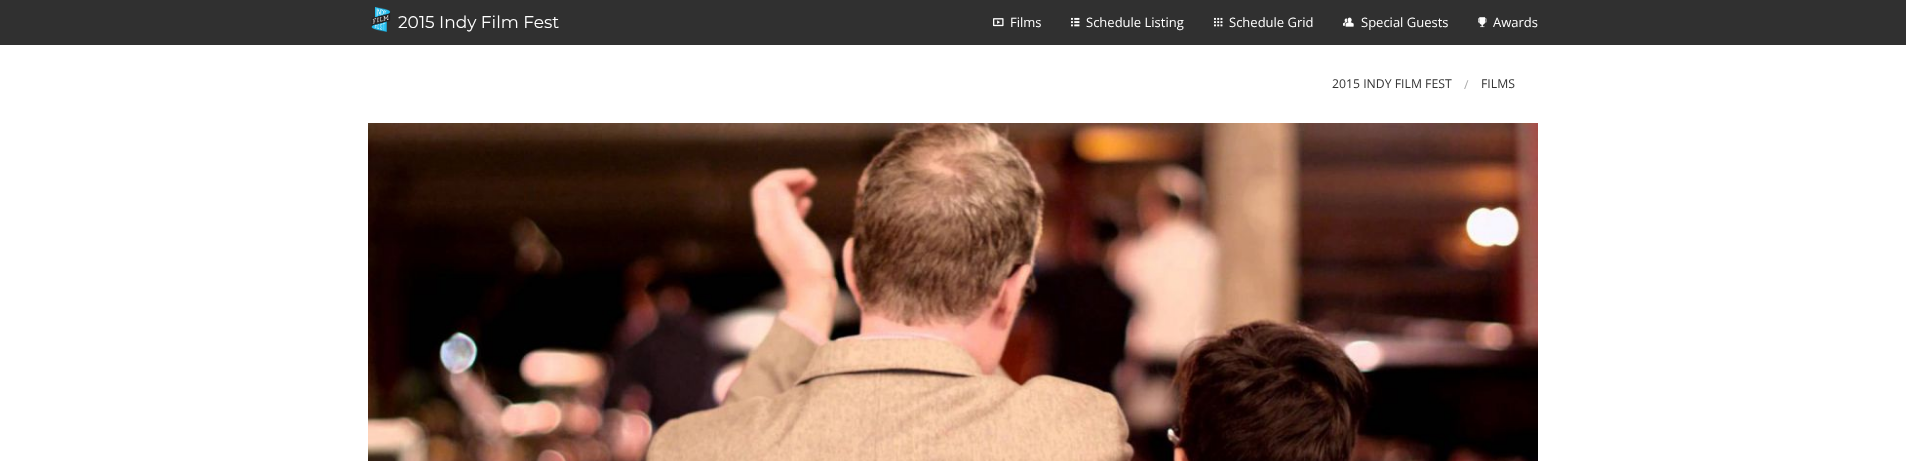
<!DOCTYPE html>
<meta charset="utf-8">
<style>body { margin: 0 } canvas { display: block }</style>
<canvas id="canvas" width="1906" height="461"></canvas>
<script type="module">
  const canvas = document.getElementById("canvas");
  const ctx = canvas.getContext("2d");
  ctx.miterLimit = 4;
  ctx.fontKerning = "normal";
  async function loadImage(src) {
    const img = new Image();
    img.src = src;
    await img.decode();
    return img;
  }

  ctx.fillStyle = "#ffffff";
  ctx.fillRect(0, 0, 1906, 461);
  ctx.fillStyle = "#303030";
  ctx.fillRect(0, 0, 1906, 45);
  ctx.drawImage(await loadImage("img1.png"), 371, 7, 20, 25);
  ctx.font = "17px Montserrat";
  ctx.fillStyle = "#ffffff";
  ctx.fillText("2015 Indy Film Fest", 398, 28);
  ctx.drawImage(await loadImage("img2.png"), 993, 18, 11, 9);
  ctx.font = "13px Open Sans";
  ctx.fillText("Films", 1010, 27);
  ctx.drawImage(await loadImage("img3.png"), 1071, 17, 9, 10);
  ctx.fillText("Schedule Listing", 1086, 27);
  ctx.drawImage(await loadImage("img4.png"), 1214, 17, 9, 10);
  ctx.fillText("Schedule Grid", 1229, 27);
  ctx.drawImage(await loadImage("img5.png"), 1343, 17, 11, 10);
  ctx.fillText("Special Guests", 1361, 27);
  ctx.drawImage(await loadImage("img6.png"), 1478, 17, 9, 11);
  ctx.fillText("Awards", 1493, 27);
  ctx.font = "12.25px Open Sans";
  ctx.fillStyle = "#333333";
  ctx.fillText("2015 INDY FILM FEST", 1332, 88);
  ctx.fillStyle = "#aaaaaa";
  ctx.fillText("/", 1464, 89);
  ctx.fillStyle = "#333333";
  ctx.fillText("FILMS", 1481, 88);
  ctx.drawImage(await loadImage("img7.png"), 368, 123, 1170, 338);
</script>
